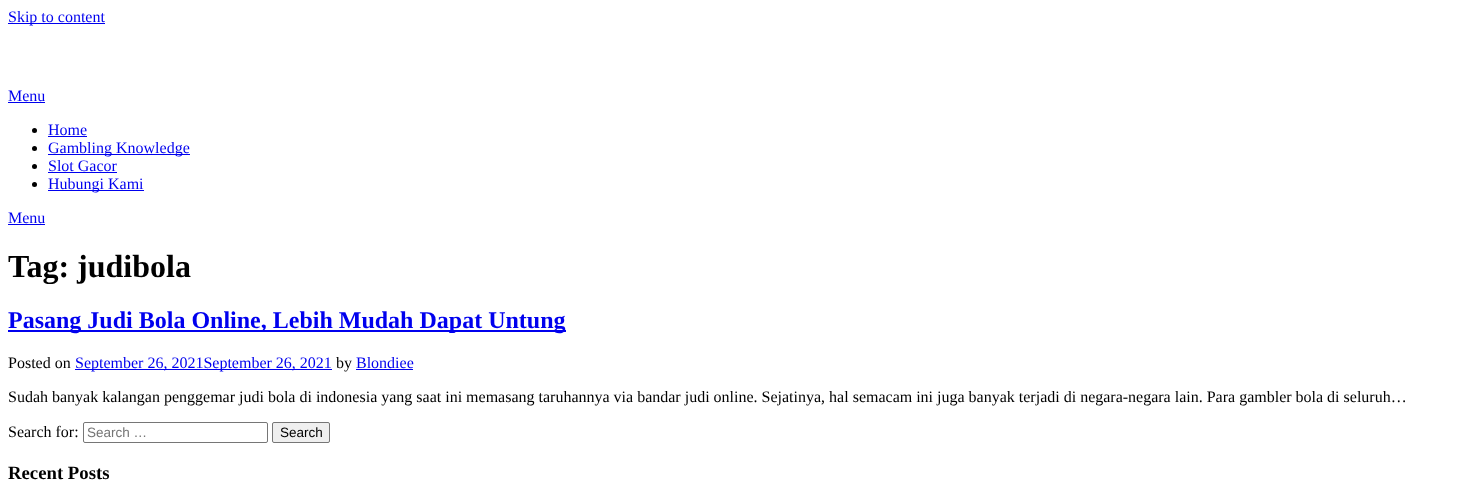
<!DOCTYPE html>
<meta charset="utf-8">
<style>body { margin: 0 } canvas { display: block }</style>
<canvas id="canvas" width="1473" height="489"></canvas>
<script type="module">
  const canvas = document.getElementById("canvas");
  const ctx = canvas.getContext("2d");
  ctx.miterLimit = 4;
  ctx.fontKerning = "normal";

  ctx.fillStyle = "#ffffff";
  ctx.fillRect(0, 0, 1473, 489);
  ctx.fillStyle = "#0000ee";
  ctx.fillRect(8, 23, 97, 1);
  ctx.font = "16px Liberation Serif";
  ctx.fillText("Skip to content", 8, 22);
  ctx.fillText("Menu", 8, 101);
  ctx.fillRect(8, 102, 37, 1);
  ctx.fillStyle = "#000000";
  ctx.beginPath();
  ctx.arc(34.5, 130.5, 2.5, 0, Math.PI * 2);
  ctx.fill();
  ctx.fillStyle = "#0000ee";
  ctx.fillText("Home", 48, 135);
  ctx.fillRect(48, 136, 39, 1);
  ctx.fillStyle = "#000000";
  ctx.beginPath();
  ctx.arc(34.5, 148.5, 2.5, 0, Math.PI * 2);
  ctx.fill();
  ctx.fillStyle = "#0000ee";
  ctx.fillRect(48, 154, 142, 1);
  ctx.fillText("Gambling Knowledge", 48, 153);
  ctx.fillStyle = "#000000";
  ctx.beginPath();
  ctx.arc(34.5, 166.5, 2.5, 0, Math.PI * 2);
  ctx.fill();
  ctx.fillStyle = "#0000ee";
  ctx.fillText("Slot Gacor", 48, 171);
  ctx.fillRect(48, 172, 69, 1);
  ctx.fillStyle = "#000000";
  ctx.beginPath();
  ctx.arc(34.5, 184.5, 2.5, 0, Math.PI * 2);
  ctx.fill();
  ctx.fillStyle = "#0000ee";
  ctx.fillRect(48, 190, 96, 1);
  ctx.fillText("Hubungi Kami", 48, 189);
  ctx.fillText("Menu", 8, 223);
  ctx.fillRect(8, 224, 37, 1);
  ctx.font = "bold 32px Liberation Serif";
  ctx.fillStyle = "#000000";
  ctx.fillText("Tag: judibola", 8, 277);
  ctx.fillStyle = "#0000ee";
  ctx.fillRect(8, 330, 558, 2);
  ctx.font = "bold 24px Liberation Serif";
  ctx.fillText("Pasang Judi Bola Online, Lebih Mudah Dapat Untung", 8, 328);
  ctx.font = "16px Liberation Serif";
  ctx.fillStyle = "#000000";
  ctx.fillText("Posted on", 8, 368);
  ctx.fillStyle = "#0000ee";
  ctx.fillRect(75, 369, 257, 1);
  ctx.fillText("September 26, 2021September 26, 2021", 75, 368);
  ctx.fillStyle = "#000000";
  ctx.fillText("by", 336, 368);
  ctx.fillStyle = "#0000ee";
  ctx.fillText("Blondiee", 356, 368);
  ctx.fillRect(356, 369, 57, 1);
  ctx.fillStyle = "#000000";
  ctx.fillText("Sudah banyak kalangan penggemar judi bola di indonesia yang saat ini memasang taruhannya via bandar judi online. Sejatinya, hal semacam ini juga banyak terjadi di negara-negara lain. Para gambler bola di seluruh…", 8, 402);
  ctx.fillText("Search for:", 8, 437);
  ctx.beginPath();
  ctx.roundRect(83.5, 422.5, 184, 20, 1.5);
  ctx.strokeStyle = "#767676";
  ctx.stroke();
  ctx.font = "13.5px Liberation Sans";
  ctx.fillStyle = "#757575";
  ctx.fillText("Search …", 87, 437);
  ctx.fillStyle = "#efefef";
  ctx.beginPath();
  ctx.roundRect(272.5, 422.5, 57, 20, 1.5);
  ctx.fill();
  ctx.stroke();
  ctx.fillStyle = "#000000";
  ctx.fillText("Search", 280, 437);
  ctx.font = "bold 18.75px Liberation Serif";
  ctx.fillText("Recent Posts", 8, 479);
</script>
